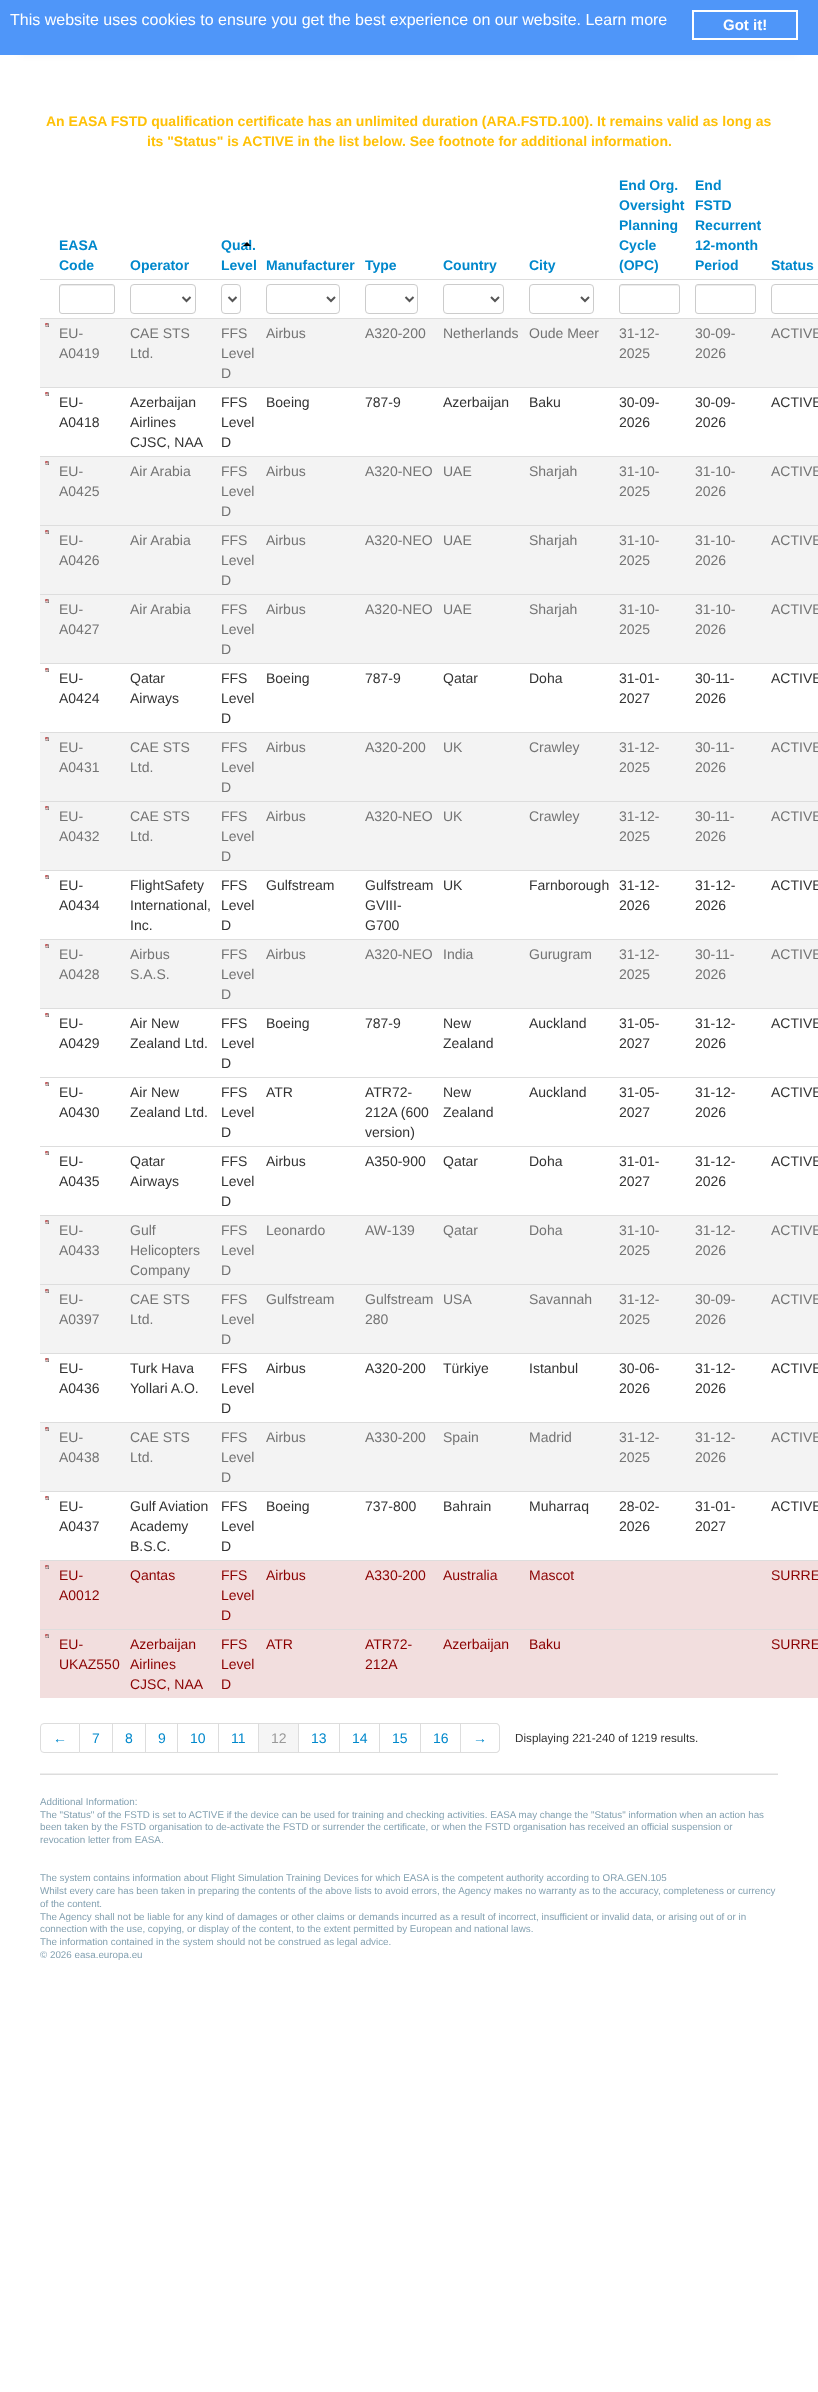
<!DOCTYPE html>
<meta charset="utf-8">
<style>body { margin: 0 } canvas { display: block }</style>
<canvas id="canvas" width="818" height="2392"></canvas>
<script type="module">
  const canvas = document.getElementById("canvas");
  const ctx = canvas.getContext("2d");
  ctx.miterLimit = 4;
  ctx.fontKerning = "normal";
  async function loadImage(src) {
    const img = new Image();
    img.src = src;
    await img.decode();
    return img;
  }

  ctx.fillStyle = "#ffffff";
  ctx.fillRect(0, 0, 818, 2392);
  ctx.fillStyle = "rgba(0, 0, 0, 0.1)";
  ctx.filter = "blur(5px)";
  ctx.beginPath();
  ctx.rect(20, 1, 778, 51);
  ctx.fill();
  ctx.filter = "none";
  ctx.fillStyle = "#4f96f9";
  ctx.fillRect(0, 0, 818, 55);
  ctx.font = "16px Liberation Sans";
  ctx.fillStyle = "#ffffff";
  ctx.fillText("This website uses cookies to ensure you get the best experience on our website. Learn more", 10, 25);
  ctx.strokeStyle = "#ffffff";
  ctx.lineWidth = 2;
  ctx.strokeRect(693, 11, 104, 28);
  ctx.font = "bold 15px Liberation Sans";
  ctx.fillText("Got it!", 723, 30);
  ctx.font = "bold 14px Liberation Sans";
  ctx.fillStyle = "#ffc107";
  ctx.fillText("An EASA FSTD qualification certificate has an unlimited duration (ARA.FSTD.100). It remains valid as long as", 46, 126);
  ctx.fillText("its \"Status\" is ACTIVE in the list below. See footnote for additional information.", 147, 146);
  ctx.fillStyle = "#0088cc";
  ctx.fillText("EASA", 59, 250);
  ctx.fillText("Code", 59, 270);
  ctx.fillText("Operator", 130, 270);
  ctx.fillText("Qual.", 221, 250);
  ctx.fillStyle = "#000000";
  ctx.beginPath();
  ctx.moveTo(251, 246);
  ctx.lineTo(243, 246);
  ctx.lineTo(247, 242);
  ctx.closePath();
  ctx.fill();
  ctx.fillStyle = "#0088cc";
  ctx.fillText("Level", 221, 270);
  ctx.fillText("Manufacturer", 266, 270);
  ctx.fillText("Type", 365, 270);
  ctx.fillText("Country", 443, 270);
  ctx.fillText("City", 529, 270);
  ctx.fillText("End Org.", 619, 190);
  ctx.fillText("Oversight", 619, 210);
  ctx.fillText("Planning", 619, 230);
  ctx.fillText("Cycle", 619, 250);
  ctx.fillText("(OPC)", 619, 270);
  ctx.fillText("End", 695, 190);
  ctx.fillText("FSTD", 695, 210);
  ctx.fillText("Recurrent", 695, 230);
  ctx.fillText("12-month", 695, 250);
  ctx.fillText("Period", 695, 270);
  ctx.fillText("Status", 771, 270);
  ctx.fillStyle = "#dddddd";
  ctx.fillRect(40, 279, 778, 1);
  ctx.beginPath();
  ctx.roundRect(771.5, 284.5, 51, 29, 3.5);
  ctx.strokeStyle = "#cccccc";
  ctx.lineWidth = 1;
  ctx.stroke();
  ctx.fillStyle = "#ececec";
  ctx.beginPath();
  ctx.moveTo(62, 286);
  ctx.lineTo(112, 286);
  ctx.bezierCurveTo(113, 286, 114, 287, 114, 288);
  ctx.bezierCurveTo(114, 283, 108, 285, 104, 285);
  ctx.lineTo(70, 285);
  ctx.bezierCurveTo(66, 285, 60, 283, 60, 288);
  ctx.bezierCurveTo(60, 287, 61, 286, 62, 286);
  ctx.closePath();
  ctx.fill();
  ctx.beginPath();
  ctx.roundRect(59.5, 284.5, 55, 29, 2.5);
  ctx.stroke();
  ctx.beginPath();
  ctx.roundRect(130.5, 284.5, 65, 29, 3.5);
  ctx.stroke();
  ctx.beginPath();
  ctx.moveTo(182.5, 297);
  ctx.lineTo(186.5, 301);
  ctx.lineTo(190.5, 297);
  ctx.strokeStyle = "#555555";
  ctx.lineWidth = 2;
  ctx.stroke();
  ctx.beginPath();
  ctx.roundRect(221.5, 284.5, 19, 29, 3.5);
  ctx.strokeStyle = "#cccccc";
  ctx.lineWidth = 1;
  ctx.stroke();
  ctx.beginPath();
  ctx.moveTo(228.5, 297);
  ctx.lineTo(232.5, 301);
  ctx.lineTo(236.5, 297);
  ctx.strokeStyle = "#555555";
  ctx.lineWidth = 2;
  ctx.stroke();
  ctx.beginPath();
  ctx.roundRect(266.5, 284.5, 73, 29, 3.5);
  ctx.strokeStyle = "#cccccc";
  ctx.lineWidth = 1;
  ctx.stroke();
  ctx.beginPath();
  ctx.moveTo(327, 297);
  ctx.lineTo(331, 301);
  ctx.lineTo(335, 297);
  ctx.strokeStyle = "#555555";
  ctx.lineWidth = 2;
  ctx.stroke();
  ctx.beginPath();
  ctx.roundRect(365.5, 284.5, 52, 29, 3.5);
  ctx.strokeStyle = "#cccccc";
  ctx.lineWidth = 1;
  ctx.stroke();
  ctx.beginPath();
  ctx.moveTo(405.5, 297);
  ctx.lineTo(409.5, 301);
  ctx.lineTo(413.5, 297);
  ctx.strokeStyle = "#555555";
  ctx.lineWidth = 2;
  ctx.stroke();
  ctx.beginPath();
  ctx.roundRect(443.5, 284.5, 60, 29, 3.5);
  ctx.strokeStyle = "#cccccc";
  ctx.lineWidth = 1;
  ctx.stroke();
  ctx.beginPath();
  ctx.moveTo(491, 297);
  ctx.lineTo(495, 301);
  ctx.lineTo(499, 297);
  ctx.strokeStyle = "#555555";
  ctx.lineWidth = 2;
  ctx.stroke();
  ctx.beginPath();
  ctx.roundRect(529.5, 284.5, 64, 29, 3.5);
  ctx.strokeStyle = "#cccccc";
  ctx.lineWidth = 1;
  ctx.stroke();
  ctx.beginPath();
  ctx.moveTo(581, 297);
  ctx.lineTo(585, 301);
  ctx.lineTo(589, 297);
  ctx.strokeStyle = "#555555";
  ctx.lineWidth = 2;
  ctx.stroke();
  ctx.beginPath();
  ctx.moveTo(622, 286);
  ctx.lineTo(677, 286);
  ctx.bezierCurveTo(678, 286, 679, 287, 679, 288);
  ctx.bezierCurveTo(679, 283, 672, 285, 668, 285);
  ctx.lineTo(631, 285);
  ctx.bezierCurveTo(627, 285, 620, 283, 620, 288);
  ctx.bezierCurveTo(620, 287, 621, 286, 622, 286);
  ctx.closePath();
  ctx.fill();
  ctx.beginPath();
  ctx.roundRect(619.5, 284.5, 60, 29, 2.5);
  ctx.strokeStyle = "#cccccc";
  ctx.lineWidth = 1;
  ctx.stroke();
  ctx.beginPath();
  ctx.moveTo(698, 286);
  ctx.lineTo(753, 286);
  ctx.bezierCurveTo(754, 286, 755, 287, 755, 288);
  ctx.bezierCurveTo(755, 283, 748, 285, 744, 285);
  ctx.lineTo(707, 285);
  ctx.bezierCurveTo(703, 285, 696, 283, 696, 288);
  ctx.bezierCurveTo(696, 287, 697, 286, 698, 286);
  ctx.closePath();
  ctx.fill();
  ctx.beginPath();
  ctx.roundRect(695.5, 284.5, 60, 29, 2.5);
  ctx.stroke();
  ctx.fillStyle = "#f3f3f3";
  ctx.fillRect(40, 319, 778, 68);
  ctx.drawImage(await loadImage("img1.png"), 45, 323, 4, 4);
  ctx.font = "14px Liberation Sans";
  ctx.fillStyle = "#737373";
  ctx.fillText("EU-", 59, 338);
  ctx.fillText("A0419", 59, 358);
  ctx.fillText("CAE STS", 130, 338);
  ctx.fillText("Ltd.", 130, 358);
  ctx.fillText("FFS", 221, 338);
  ctx.fillText("Level", 221, 358);
  ctx.fillText("D", 221, 378);
  ctx.fillText("Airbus", 266, 338);
  ctx.fillText("A320-200", 365, 338);
  ctx.fillText("Netherlands", 443, 338);
  ctx.fillText("Oude Meer", 529, 338);
  ctx.fillText("31-12-", 619, 338);
  ctx.fillText("2025", 619, 358);
  ctx.fillText("30-09-", 695, 338);
  ctx.fillText("2026", 695, 358);
  ctx.fillStyle = "#dddddd";
  ctx.fillRect(40, 318, 778, 1);
  ctx.fillStyle = "#737373";
  ctx.fillText("ACTIVE", 771, 338);
  ctx.drawImage(await loadImage("img2.png"), 45, 392, 4, 4);
  ctx.fillStyle = "#333333";
  ctx.fillText("EU-", 59, 407);
  ctx.fillText("A0418", 59, 427);
  ctx.fillText("Azerbaijan", 130, 407);
  ctx.fillText("Airlines", 130, 427);
  ctx.fillText("CJSC, NAA", 130, 447);
  ctx.fillText("FFS", 221, 407);
  ctx.fillText("Level", 221, 427);
  ctx.fillText("D", 221, 447);
  ctx.fillText("Boeing", 266, 407);
  ctx.fillText("787-9", 365, 407);
  ctx.fillText("Azerbaijan", 443, 407);
  ctx.fillText("Baku", 529, 407);
  ctx.fillText("30-09-", 619, 407);
  ctx.fillText("2026", 619, 427);
  ctx.fillText("30-09-", 695, 407);
  ctx.fillText("2026", 695, 427);
  ctx.fillStyle = "#dddddd";
  ctx.fillRect(40, 387, 778, 1);
  ctx.fillStyle = "#333333";
  ctx.fillText("ACTIVE", 771, 407);
  ctx.fillStyle = "#f3f3f3";
  ctx.fillRect(40, 457, 778, 68);
  ctx.drawImage(await loadImage("img1.png"), 45, 461, 4, 4);
  ctx.fillStyle = "#737373";
  ctx.fillText("EU-", 59, 476);
  ctx.fillText("A0425", 59, 496);
  ctx.fillText("Air Arabia", 130, 476);
  ctx.fillText("FFS", 221, 476);
  ctx.fillText("Level", 221, 496);
  ctx.fillText("D", 221, 516);
  ctx.fillText("Airbus", 266, 476);
  ctx.fillText("A320-NEO", 365, 476);
  ctx.fillText("UAE", 443, 476);
  ctx.fillText("Sharjah", 529, 476);
  ctx.fillText("31-10-", 619, 476);
  ctx.fillText("2025", 619, 496);
  ctx.fillText("31-10-", 695, 476);
  ctx.fillText("2026", 695, 496);
  ctx.fillStyle = "#dddddd";
  ctx.fillRect(40, 456, 778, 1);
  ctx.fillStyle = "#737373";
  ctx.fillText("ACTIVE", 771, 476);
  ctx.fillStyle = "#f3f3f3";
  ctx.fillRect(40, 526, 778, 68);
  ctx.drawImage(await loadImage("img1.png"), 45, 530, 4, 4);
  ctx.fillStyle = "#737373";
  ctx.fillText("EU-", 59, 545);
  ctx.fillText("A0426", 59, 565);
  ctx.fillText("Air Arabia", 130, 545);
  ctx.fillText("FFS", 221, 545);
  ctx.fillText("Level", 221, 565);
  ctx.fillText("D", 221, 585);
  ctx.fillText("Airbus", 266, 545);
  ctx.fillText("A320-NEO", 365, 545);
  ctx.fillText("UAE", 443, 545);
  ctx.fillText("Sharjah", 529, 545);
  ctx.fillText("31-10-", 619, 545);
  ctx.fillText("2025", 619, 565);
  ctx.fillText("31-10-", 695, 545);
  ctx.fillText("2026", 695, 565);
  ctx.fillStyle = "#dddddd";
  ctx.fillRect(40, 525, 778, 1);
  ctx.fillStyle = "#737373";
  ctx.fillText("ACTIVE", 771, 545);
  ctx.fillStyle = "#f3f3f3";
  ctx.fillRect(40, 595, 778, 68);
  ctx.drawImage(await loadImage("img1.png"), 45, 599, 4, 4);
  ctx.fillStyle = "#737373";
  ctx.fillText("EU-", 59, 614);
  ctx.fillText("A0427", 59, 634);
  ctx.fillText("Air Arabia", 130, 614);
  ctx.fillText("FFS", 221, 614);
  ctx.fillText("Level", 221, 634);
  ctx.fillText("D", 221, 654);
  ctx.fillText("Airbus", 266, 614);
  ctx.fillText("A320-NEO", 365, 614);
  ctx.fillText("UAE", 443, 614);
  ctx.fillText("Sharjah", 529, 614);
  ctx.fillText("31-10-", 619, 614);
  ctx.fillText("2025", 619, 634);
  ctx.fillText("31-10-", 695, 614);
  ctx.fillText("2026", 695, 634);
  ctx.fillStyle = "#dddddd";
  ctx.fillRect(40, 594, 778, 1);
  ctx.fillStyle = "#737373";
  ctx.fillText("ACTIVE", 771, 614);
  ctx.drawImage(await loadImage("img2.png"), 45, 668, 4, 4);
  ctx.fillStyle = "#333333";
  ctx.fillText("EU-", 59, 683);
  ctx.fillText("A0424", 59, 703);
  ctx.fillText("Qatar", 130, 683);
  ctx.fillText("Airways", 130, 703);
  ctx.fillText("FFS", 221, 683);
  ctx.fillText("Level", 221, 703);
  ctx.fillText("D", 221, 723);
  ctx.fillText("Boeing", 266, 683);
  ctx.fillText("787-9", 365, 683);
  ctx.fillText("Qatar", 443, 683);
  ctx.fillText("Doha", 529, 683);
  ctx.fillText("31-01-", 619, 683);
  ctx.fillText("2027", 619, 703);
  ctx.fillText("30-11-", 695, 683);
  ctx.fillText("2026", 695, 703);
  ctx.fillStyle = "#dddddd";
  ctx.fillRect(40, 663, 778, 1);
  ctx.fillStyle = "#333333";
  ctx.fillText("ACTIVE", 771, 683);
  ctx.fillStyle = "#f3f3f3";
  ctx.fillRect(40, 733, 778, 68);
  ctx.drawImage(await loadImage("img1.png"), 45, 737, 4, 4);
  ctx.fillStyle = "#737373";
  ctx.fillText("EU-", 59, 752);
  ctx.fillText("A0431", 59, 772);
  ctx.fillText("CAE STS", 130, 752);
  ctx.fillText("Ltd.", 130, 772);
  ctx.fillText("FFS", 221, 752);
  ctx.fillText("Level", 221, 772);
  ctx.fillText("D", 221, 792);
  ctx.fillText("Airbus", 266, 752);
  ctx.fillText("A320-200", 365, 752);
  ctx.fillText("UK", 443, 752);
  ctx.fillText("Crawley", 529, 752);
  ctx.fillText("31-12-", 619, 752);
  ctx.fillText("2025", 619, 772);
  ctx.fillText("30-11-", 695, 752);
  ctx.fillText("2026", 695, 772);
  ctx.fillStyle = "#dddddd";
  ctx.fillRect(40, 732, 778, 1);
  ctx.fillStyle = "#737373";
  ctx.fillText("ACTIVE", 771, 752);
  ctx.fillStyle = "#f3f3f3";
  ctx.fillRect(40, 802, 778, 68);
  ctx.drawImage(await loadImage("img1.png"), 45, 806, 4, 4);
  ctx.fillStyle = "#737373";
  ctx.fillText("EU-", 59, 821);
  ctx.fillText("A0432", 59, 841);
  ctx.fillText("CAE STS", 130, 821);
  ctx.fillText("Ltd.", 130, 841);
  ctx.fillText("FFS", 221, 821);
  ctx.fillText("Level", 221, 841);
  ctx.fillText("D", 221, 861);
  ctx.fillText("Airbus", 266, 821);
  ctx.fillText("A320-NEO", 365, 821);
  ctx.fillText("UK", 443, 821);
  ctx.fillText("Crawley", 529, 821);
  ctx.fillText("31-12-", 619, 821);
  ctx.fillText("2025", 619, 841);
  ctx.fillText("30-11-", 695, 821);
  ctx.fillText("2026", 695, 841);
  ctx.fillStyle = "#dddddd";
  ctx.fillRect(40, 801, 778, 1);
  ctx.fillStyle = "#737373";
  ctx.fillText("ACTIVE", 771, 821);
  ctx.drawImage(await loadImage("img2.png"), 45, 875, 4, 4);
  ctx.fillStyle = "#333333";
  ctx.fillText("EU-", 59, 890);
  ctx.fillText("A0434", 59, 910);
  ctx.fillText("FlightSafety", 130, 890);
  ctx.fillText("International,", 130, 910);
  ctx.fillText("Inc.", 130, 930);
  ctx.fillText("FFS", 221, 890);
  ctx.fillText("Level", 221, 910);
  ctx.fillText("D", 221, 930);
  ctx.fillText("Gulfstream", 266, 890);
  ctx.fillText("Gulfstream", 365, 890);
  ctx.fillText("GVIII-", 365, 910);
  ctx.fillText("G700", 365, 930);
  ctx.fillText("UK", 443, 890);
  ctx.fillText("Farnborough", 529, 890);
  ctx.fillText("31-12-", 619, 890);
  ctx.fillText("2026", 619, 910);
  ctx.fillText("31-12-", 695, 890);
  ctx.fillText("2026", 695, 910);
  ctx.fillStyle = "#dddddd";
  ctx.fillRect(40, 870, 778, 1);
  ctx.fillStyle = "#333333";
  ctx.fillText("ACTIVE", 771, 890);
  ctx.fillStyle = "#f3f3f3";
  ctx.fillRect(40, 940, 778, 68);
  ctx.drawImage(await loadImage("img1.png"), 45, 944, 4, 4);
  ctx.fillStyle = "#737373";
  ctx.fillText("EU-", 59, 959);
  ctx.fillText("A0428", 59, 979);
  ctx.fillText("Airbus", 130, 959);
  ctx.fillText("S.A.S.", 130, 979);
  ctx.fillText("FFS", 221, 959);
  ctx.fillText("Level", 221, 979);
  ctx.fillText("D", 221, 999);
  ctx.fillText("Airbus", 266, 959);
  ctx.fillText("A320-NEO", 365, 959);
  ctx.fillText("India", 443, 959);
  ctx.fillText("Gurugram", 529, 959);
  ctx.fillText("31-12-", 619, 959);
  ctx.fillText("2025", 619, 979);
  ctx.fillText("30-11-", 695, 959);
  ctx.fillText("2026", 695, 979);
  ctx.fillStyle = "#dddddd";
  ctx.fillRect(40, 939, 778, 1);
  ctx.fillStyle = "#737373";
  ctx.fillText("ACTIVE", 771, 959);
  ctx.drawImage(await loadImage("img2.png"), 45, 1013, 4, 4);
  ctx.fillStyle = "#333333";
  ctx.fillText("EU-", 59, 1028);
  ctx.fillText("A0429", 59, 1048);
  ctx.fillText("Air New", 130, 1028);
  ctx.fillText("Zealand Ltd.", 130, 1048);
  ctx.fillText("FFS", 221, 1028);
  ctx.fillText("Level", 221, 1048);
  ctx.fillText("D", 221, 1068);
  ctx.fillText("Boeing", 266, 1028);
  ctx.fillText("787-9", 365, 1028);
  ctx.fillText("New", 443, 1028);
  ctx.fillText("Zealand", 443, 1048);
  ctx.fillText("Auckland", 529, 1028);
  ctx.fillText("31-05-", 619, 1028);
  ctx.fillText("2027", 619, 1048);
  ctx.fillText("31-12-", 695, 1028);
  ctx.fillText("2026", 695, 1048);
  ctx.fillStyle = "#dddddd";
  ctx.fillRect(40, 1008, 778, 1);
  ctx.fillStyle = "#333333";
  ctx.fillText("ACTIVE", 771, 1028);
  ctx.drawImage(await loadImage("img2.png"), 45, 1082, 4, 4);
  ctx.fillText("EU-", 59, 1097);
  ctx.fillText("A0430", 59, 1117);
  ctx.fillText("Air New", 130, 1097);
  ctx.fillText("Zealand Ltd.", 130, 1117);
  ctx.fillText("FFS", 221, 1097);
  ctx.fillText("Level", 221, 1117);
  ctx.fillText("D", 221, 1137);
  ctx.fillText("ATR", 266, 1097);
  ctx.fillText("ATR72-", 365, 1097);
  ctx.fillText("212A (600", 365, 1117);
  ctx.fillText("version)", 365, 1137);
  ctx.fillText("New", 443, 1097);
  ctx.fillText("Zealand", 443, 1117);
  ctx.fillText("Auckland", 529, 1097);
  ctx.fillText("31-05-", 619, 1097);
  ctx.fillText("2027", 619, 1117);
  ctx.fillText("31-12-", 695, 1097);
  ctx.fillText("2026", 695, 1117);
  ctx.fillStyle = "#dddddd";
  ctx.fillRect(40, 1077, 778, 1);
  ctx.fillStyle = "#333333";
  ctx.fillText("ACTIVE", 771, 1097);
  ctx.drawImage(await loadImage("img2.png"), 45, 1151, 4, 4);
  ctx.fillText("EU-", 59, 1166);
  ctx.fillText("A0435", 59, 1186);
  ctx.fillText("Qatar", 130, 1166);
  ctx.fillText("Airways", 130, 1186);
  ctx.fillText("FFS", 221, 1166);
  ctx.fillText("Level", 221, 1186);
  ctx.fillText("D", 221, 1206);
  ctx.fillText("Airbus", 266, 1166);
  ctx.fillText("A350-900", 365, 1166);
  ctx.fillText("Qatar", 443, 1166);
  ctx.fillText("Doha", 529, 1166);
  ctx.fillText("31-01-", 619, 1166);
  ctx.fillText("2027", 619, 1186);
  ctx.fillText("31-12-", 695, 1166);
  ctx.fillText("2026", 695, 1186);
  ctx.fillStyle = "#dddddd";
  ctx.fillRect(40, 1146, 778, 1);
  ctx.fillStyle = "#333333";
  ctx.fillText("ACTIVE", 771, 1166);
  ctx.fillStyle = "#f3f3f3";
  ctx.fillRect(40, 1216, 778, 68);
  ctx.drawImage(await loadImage("img1.png"), 45, 1220, 4, 4);
  ctx.fillStyle = "#737373";
  ctx.fillText("EU-", 59, 1235);
  ctx.fillText("A0433", 59, 1255);
  ctx.fillText("Gulf", 130, 1235);
  ctx.fillText("Helicopters", 130, 1255);
  ctx.fillText("Company", 130, 1275);
  ctx.fillText("FFS", 221, 1235);
  ctx.fillText("Level", 221, 1255);
  ctx.fillText("D", 221, 1275);
  ctx.fillText("Leonardo", 266, 1235);
  ctx.fillText("AW-139", 365, 1235);
  ctx.fillText("Qatar", 443, 1235);
  ctx.fillText("Doha", 529, 1235);
  ctx.fillText("31-10-", 619, 1235);
  ctx.fillText("2025", 619, 1255);
  ctx.fillText("31-12-", 695, 1235);
  ctx.fillText("2026", 695, 1255);
  ctx.fillStyle = "#dddddd";
  ctx.fillRect(40, 1215, 778, 1);
  ctx.fillStyle = "#737373";
  ctx.fillText("ACTIVE", 771, 1235);
  ctx.fillStyle = "#f3f3f3";
  ctx.fillRect(40, 1285, 778, 68);
  ctx.drawImage(await loadImage("img1.png"), 45, 1289, 4, 4);
  ctx.fillStyle = "#737373";
  ctx.fillText("EU-", 59, 1304);
  ctx.fillText("A0397", 59, 1324);
  ctx.fillText("CAE STS", 130, 1304);
  ctx.fillText("Ltd.", 130, 1324);
  ctx.fillText("FFS", 221, 1304);
  ctx.fillText("Level", 221, 1324);
  ctx.fillText("D", 221, 1344);
  ctx.fillText("Gulfstream", 266, 1304);
  ctx.fillText("Gulfstream", 365, 1304);
  ctx.fillText("280", 365, 1324);
  ctx.fillText("USA", 443, 1304);
  ctx.fillText("Savannah", 529, 1304);
  ctx.fillText("31-12-", 619, 1304);
  ctx.fillText("2025", 619, 1324);
  ctx.fillText("30-09-", 695, 1304);
  ctx.fillText("2026", 695, 1324);
  ctx.fillStyle = "#dddddd";
  ctx.fillRect(40, 1284, 778, 1);
  ctx.fillStyle = "#737373";
  ctx.fillText("ACTIVE", 771, 1304);
  ctx.drawImage(await loadImage("img2.png"), 45, 1358, 4, 4);
  ctx.fillStyle = "#333333";
  ctx.fillText("EU-", 59, 1373);
  ctx.fillText("A0436", 59, 1393);
  ctx.fillText("Turk Hava", 130, 1373);
  ctx.fillText("Yollari A.O.", 130, 1393);
  ctx.fillText("FFS", 221, 1373);
  ctx.fillText("Level", 221, 1393);
  ctx.fillText("D", 221, 1413);
  ctx.fillText("Airbus", 266, 1373);
  ctx.fillText("A320-200", 365, 1373);
  ctx.fillText("Türkiye", 443, 1373);
  ctx.fillText("Istanbul", 529, 1373);
  ctx.fillText("30-06-", 619, 1373);
  ctx.fillText("2026", 619, 1393);
  ctx.fillText("31-12-", 695, 1373);
  ctx.fillText("2026", 695, 1393);
  ctx.fillStyle = "#dddddd";
  ctx.fillRect(40, 1353, 778, 1);
  ctx.fillStyle = "#333333";
  ctx.fillText("ACTIVE", 771, 1373);
  ctx.fillStyle = "#f3f3f3";
  ctx.fillRect(40, 1423, 778, 68);
  ctx.drawImage(await loadImage("img1.png"), 45, 1427, 4, 4);
  ctx.fillStyle = "#737373";
  ctx.fillText("EU-", 59, 1442);
  ctx.fillText("A0438", 59, 1462);
  ctx.fillText("CAE STS", 130, 1442);
  ctx.fillText("Ltd.", 130, 1462);
  ctx.fillText("FFS", 221, 1442);
  ctx.fillText("Level", 221, 1462);
  ctx.fillText("D", 221, 1482);
  ctx.fillText("Airbus", 266, 1442);
  ctx.fillText("A330-200", 365, 1442);
  ctx.fillText("Spain", 443, 1442);
  ctx.fillText("Madrid", 529, 1442);
  ctx.fillText("31-12-", 619, 1442);
  ctx.fillText("2025", 619, 1462);
  ctx.fillText("31-12-", 695, 1442);
  ctx.fillText("2026", 695, 1462);
  ctx.fillStyle = "#dddddd";
  ctx.fillRect(40, 1422, 778, 1);
  ctx.fillStyle = "#737373";
  ctx.fillText("ACTIVE", 771, 1442);
  ctx.drawImage(await loadImage("img2.png"), 45, 1496, 4, 4);
  ctx.fillStyle = "#333333";
  ctx.fillText("EU-", 59, 1511);
  ctx.fillText("A0437", 59, 1531);
  ctx.fillText("Gulf Aviation", 130, 1511);
  ctx.fillText("Academy", 130, 1531);
  ctx.fillText("B.S.C.", 130, 1551);
  ctx.fillText("FFS", 221, 1511);
  ctx.fillText("Level", 221, 1531);
  ctx.fillText("D", 221, 1551);
  ctx.fillText("Boeing", 266, 1511);
  ctx.fillText("737-800", 365, 1511);
  ctx.fillText("Bahrain", 443, 1511);
  ctx.fillText("Muharraq", 529, 1511);
  ctx.fillText("28-02-", 619, 1511);
  ctx.fillText("2026", 619, 1531);
  ctx.fillText("31-01-", 695, 1511);
  ctx.fillText("2027", 695, 1531);
  ctx.fillStyle = "#dddddd";
  ctx.fillRect(40, 1491, 778, 1);
  ctx.fillStyle = "#333333";
  ctx.fillText("ACTIVE", 771, 1511);
  ctx.fillStyle = "#f2dede";
  ctx.fillRect(40, 1561, 778, 68);
  ctx.drawImage(await loadImage("img3.png"), 45, 1565, 4, 4);
  ctx.fillStyle = "#8b0000";
  ctx.fillText("EU-", 59, 1580);
  ctx.fillText("A0012", 59, 1600);
  ctx.fillText("Qantas", 130, 1580);
  ctx.fillText("FFS", 221, 1580);
  ctx.fillText("Level", 221, 1600);
  ctx.fillText("D", 221, 1620);
  ctx.fillText("Airbus", 266, 1580);
  ctx.fillText("A330-200", 365, 1580);
  ctx.fillText("Australia", 443, 1580);
  ctx.fillText("Mascot", 529, 1580);
  ctx.fillStyle = "#dddddd";
  ctx.fillRect(40, 1560, 778, 1);
  ctx.fillStyle = "#8b0000";
  ctx.fillText("SURRE", 771, 1580);
  ctx.fillStyle = "#f2dede";
  ctx.fillRect(40, 1630, 778, 68);
  ctx.drawImage(await loadImage("img3.png"), 45, 1634, 4, 4);
  ctx.fillStyle = "#8b0000";
  ctx.fillText("EU-", 59, 1649);
  ctx.fillText("UKAZ550", 59, 1669);
  ctx.fillText("Azerbaijan", 130, 1649);
  ctx.fillText("Airlines", 130, 1669);
  ctx.fillText("CJSC, NAA", 130, 1689);
  ctx.fillText("FFS", 221, 1649);
  ctx.fillText("Level", 221, 1669);
  ctx.fillText("D", 221, 1689);
  ctx.fillText("ATR", 266, 1649);
  ctx.fillText("ATR72-", 365, 1649);
  ctx.fillText("212A", 365, 1669);
  ctx.fillText("Azerbaijan", 443, 1649);
  ctx.fillText("Baku", 529, 1649);
  ctx.fillStyle = "#dddddd";
  ctx.fillRect(40, 1629, 778, 1);
  ctx.fillStyle = "#8b0000";
  ctx.fillText("SURRE", 771, 1649);
  ctx.beginPath();
  ctx.roundRect(40.5, 1723.5, 39, 29, [3.5, 0, 0, 3.5]);
  ctx.strokeStyle = "#dddddd";
  ctx.stroke();
  ctx.fillStyle = "#0088cc";
  ctx.fillText("←", 53, 1743);
  ctx.fillStyle = "#dddddd";
  ctx.fillRect(80, 1723, 381, 1);
  ctx.fillRect(112, 1723, 1, 30);
  ctx.fillRect(80, 1752, 33, 1);
  ctx.fillStyle = "#0088cc";
  ctx.fillText("7", 92, 1743);
  ctx.fillStyle = "#dddddd";
  ctx.fillRect(145, 1723, 1, 30);
  ctx.fillRect(113, 1752, 33, 1);
  ctx.fillStyle = "#0088cc";
  ctx.fillText("8", 125, 1743);
  ctx.fillStyle = "#dddddd";
  ctx.fillRect(177, 1723, 1, 30);
  ctx.fillRect(146, 1752, 32, 1);
  ctx.fillStyle = "#0088cc";
  ctx.fillText("9", 158, 1743);
  ctx.fillStyle = "#dddddd";
  ctx.fillRect(218, 1723, 1, 30);
  ctx.fillRect(178, 1752, 41, 1);
  ctx.fillStyle = "#0088cc";
  ctx.fillText("10", 190, 1743);
  ctx.fillStyle = "#dddddd";
  ctx.fillRect(258, 1723, 1, 30);
  ctx.fillRect(219, 1752, 40, 1);
  ctx.fillStyle = "#0088cc";
  ctx.fillText("11", 231, 1743);
  ctx.fillStyle = "#f5f5f5";
  ctx.fillRect(259, 1724, 39, 28);
  ctx.fillStyle = "#dddddd";
  ctx.fillRect(298, 1723, 1, 30);
  ctx.fillRect(259, 1752, 40, 1);
  ctx.fillStyle = "#999999";
  ctx.fillText("12", 271, 1743);
  ctx.fillStyle = "#dddddd";
  ctx.fillRect(339, 1723, 1, 30);
  ctx.fillRect(299, 1752, 41, 1);
  ctx.fillStyle = "#0088cc";
  ctx.fillText("13", 311, 1743);
  ctx.fillStyle = "#dddddd";
  ctx.fillRect(379, 1723, 1, 30);
  ctx.fillRect(340, 1752, 40, 1);
  ctx.fillStyle = "#0088cc";
  ctx.fillText("14", 352, 1743);
  ctx.fillStyle = "#dddddd";
  ctx.fillRect(420, 1723, 1, 30);
  ctx.fillRect(380, 1752, 41, 1);
  ctx.fillStyle = "#0088cc";
  ctx.fillText("15", 392, 1743);
  ctx.fillStyle = "#dddddd";
  ctx.fillRect(460, 1723, 1, 30);
  ctx.fillRect(421, 1752, 40, 1);
  ctx.fillStyle = "#0088cc";
  ctx.fillText("16", 433, 1743);
  ctx.fillStyle = "#dddddd";
  ctx.beginPath();
  ctx.moveTo(461, 1723);
  ctx.lineTo(496, 1723);
  ctx.bezierCurveTo(498, 1723, 500, 1725, 500, 1727);
  ctx.lineTo(500, 1749);
  ctx.bezierCurveTo(500, 1751, 498, 1753, 496, 1753);
  ctx.lineTo(461, 1753);
  ctx.closePath();
  ctx.moveTo(461, 1724);
  ctx.lineTo(496, 1724);
  ctx.bezierCurveTo(497.5, 1724, 499, 1725.5, 499, 1727);
  ctx.lineTo(499, 1749);
  ctx.bezierCurveTo(499, 1750.5, 497.5, 1752, 496, 1752);
  ctx.lineTo(461, 1752);
  ctx.closePath();
  ctx.fill("evenodd");
  ctx.fillStyle = "#0088cc";
  ctx.fillText("→", 473, 1743);
  ctx.font = "11.7px Liberation Sans";
  ctx.fillStyle = "#333333";
  ctx.fillText("Displaying 221-240 of 1219 results.", 515, 1742);
  ctx.fillStyle = "#dddddd";
  ctx.fillRect(40, 1774, 738, 1);
  ctx.fillStyle = "#eeeeee";
  ctx.fillRect(40, 1773, 738, 1);
  ctx.font = "9.8px Liberation Sans";
  ctx.fillStyle = "#84a1b1";
  ctx.fillText("Additional Information:", 40, 1805);
  ctx.fillText("The \"Status\" of the FSTD is set to ACTIVE if the device can be used for training and checking activities. EASA may change the \"Status\" information when an action has", 40, 1818);
  ctx.fillText("been taken by the FSTD organisation to de-activate the FSTD or surrender the certificate, or when the FSTD organisation has received an official suspension or", 40, 1830);
  ctx.fillText("revocation letter from EASA.", 40, 1843);
  ctx.fillText("The system contains information about Flight Simulation Training Devices for which EASA is the competent authority according to ORA.GEN.105", 40, 1881);
  ctx.fillText("Whilst every care has been taken in preparing the contents of the above lists to avoid errors, the Agency makes no warranty as to the accuracy, completeness or currency", 40, 1894);
  ctx.fillText("of the content.", 40, 1907);
  ctx.fillText("The Agency shall not be liable for any kind of damages or other claims or demands incurred as a result of incorrect, insufficient or invalid data, or arising out of or in", 40, 1920);
  ctx.fillText("connection with the use, copying, or display of the content, to the extent permitted by European and national laws.", 40, 1932);
  ctx.fillText("The information contained in the system should not be construed as legal advice.", 40, 1945);
  ctx.fillText("© 2026 easa.europa.eu", 40, 1958);
</script>
